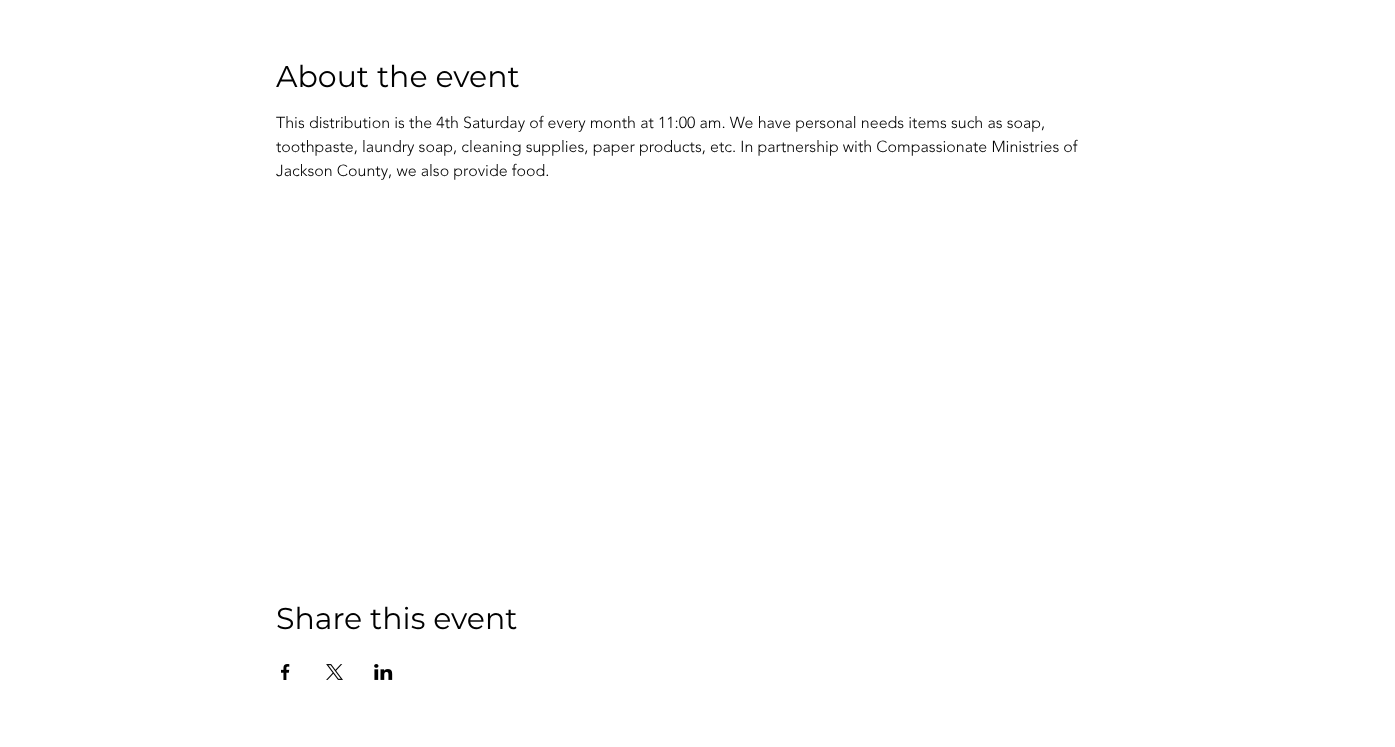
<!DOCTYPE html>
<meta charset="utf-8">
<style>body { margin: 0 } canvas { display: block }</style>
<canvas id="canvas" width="1395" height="747"></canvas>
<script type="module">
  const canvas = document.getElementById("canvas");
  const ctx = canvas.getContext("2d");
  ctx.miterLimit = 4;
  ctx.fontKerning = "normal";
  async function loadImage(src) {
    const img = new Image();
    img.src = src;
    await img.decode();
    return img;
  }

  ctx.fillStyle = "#ffffff";
  ctx.fillRect(0, 0, 1395, 747);
  ctx.font = "30px Montserrat";
  ctx.fillStyle = "#000000";
  ctx.fillText("About the event", 276, 87);
  ctx.font = "300 16px 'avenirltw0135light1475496'";
  ctx.fillText("This distribution is the 4th Saturday of every month at 11:00 am. We have personal needs items such as soap,", 276, 128);
  ctx.fillText("toothpaste, laundry soap, cleaning supplies, paper products, etc. In partnership with Compassionate Ministries of", 276, 152);
  ctx.fillText("Jackson County, we also provide food.", 276, 176);
  ctx.font = "30px Montserrat";
  ctx.fillText("Share this event", 276, 629);
  ctx.drawImage(await loadImage("img1.png"), 281, 664, 9, 16);
  ctx.drawImage(await loadImage("img2.png"), 326, 664, 17, 16);
  ctx.drawImage(await loadImage("img3.png"), 374, 664, 19, 16);
</script>
